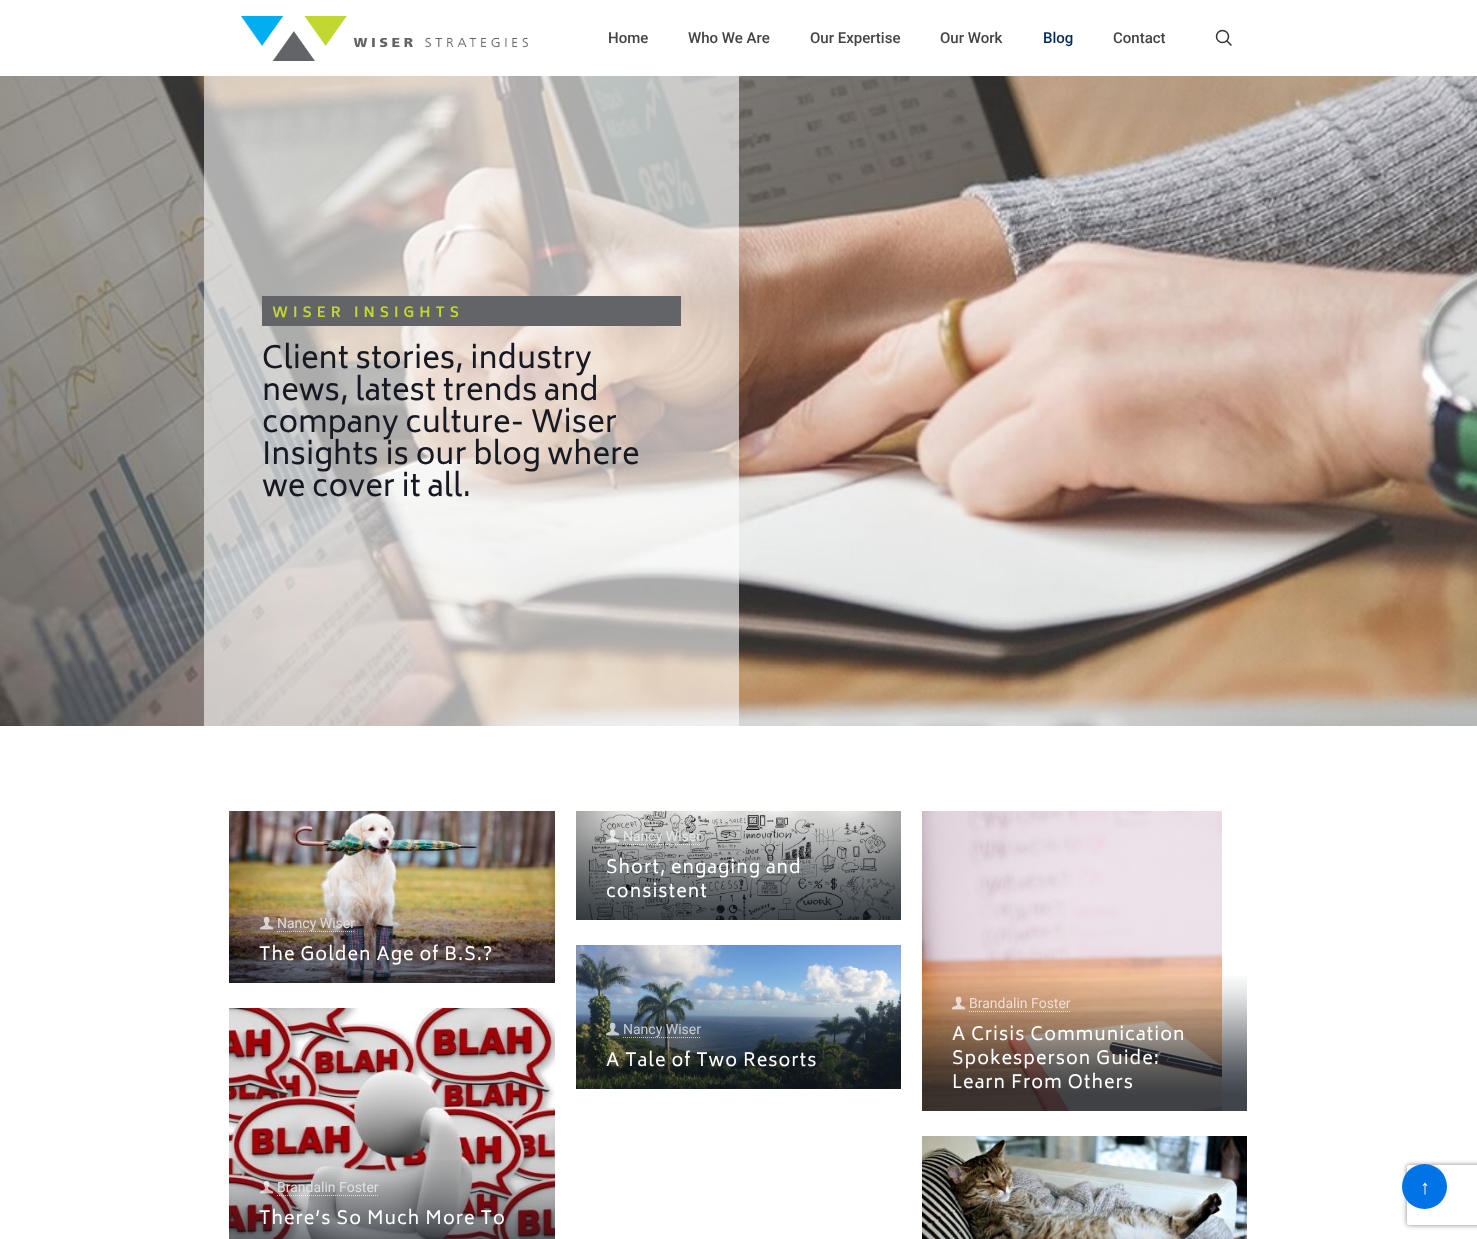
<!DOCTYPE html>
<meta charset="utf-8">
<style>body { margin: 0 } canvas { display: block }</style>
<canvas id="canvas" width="1477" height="1239"></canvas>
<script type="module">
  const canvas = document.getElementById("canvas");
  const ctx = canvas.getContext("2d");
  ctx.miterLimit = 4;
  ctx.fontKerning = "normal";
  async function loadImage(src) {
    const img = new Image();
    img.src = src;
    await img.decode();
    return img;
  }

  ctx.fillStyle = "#ffffff";
  ctx.fillRect(0, 0, 1477, 1239);
  ctx.drawImage(await loadImage("img1.png"), 241, 16, 287, 45);
  ctx.font = "500 15px Roboto";
  ctx.fillStyle = "#444444";
  ctx.fillText("Home", 608, 43);
  ctx.fillText("Who We Are", 688, 43);
  ctx.fillText("Our Expertise", 810, 43);
  ctx.fillText("Our Work", 940, 43);
  ctx.fillStyle = "#002a5c";
  ctx.fillText("Blog", 1043, 43);
  ctx.fillStyle = "#444444";
  ctx.fillText("Contact", 1113, 43);
  ctx.beginPath();
  ctx.arc(1222.5, 36.5, 6, 0, Math.PI * 2);
  ctx.strokeStyle = "#333333";
  ctx.lineWidth = 1.5;
  ctx.stroke();
  ctx.beginPath();
  ctx.moveTo(1226.5, 40.5);
  ctx.lineTo(1231.5, 45.5);
  ctx.stroke();
  ctx.drawImage(await loadImage("img2.png"), 0, 76, 1477, 650);
  ctx.fillStyle = "rgba(255, 255, 255, 0.6)";
  ctx.fillRect(204, 76, 535, 650);
  ctx.fillStyle = "#636468";
  ctx.fillRect(262, 296, 419, 30);
  ctx.letterSpacing = "5px";
  ctx.font = "bold 14px Biryani";
  ctx.fillStyle = "#c2d730";
  ctx.fillText("WISER INSIGHTS", 272, 317);
  ctx.letterSpacing = "0px";
  ctx.font = "30px Biryani";
  ctx.fillStyle = "#161922";
  ctx.fillText("Client stories, industry", 262, 368);
  ctx.fillText("news, latest trends and", 262, 400);
  ctx.fillText("company culture- Wiser", 262, 432);
  ctx.fillText("Insights is our blog where", 262, 464);
  ctx.fillText("we cover it all.", 262, 496);
  ctx.drawImage(await loadImage("img3.png"), 576, 811, 325, 109);
  ctx.drawImage(await loadImage("img4.png"), 576, 811, 325, 109);
  ctx.drawImage(await loadImage("img5.png"), 606, 829, 14, 14);
  ctx.font = "14px Roboto";
  ctx.fillStyle = "#e6e7e7";
  ctx.fillText("Nancy Wiser", 623, 841);
  ctx.beginPath();
  ctx.moveTo(623, 844.5);
  ctx.lineTo(701, 844.5);
  ctx.strokeStyle = "rgba(255, 255, 255, 0.7)";
  ctx.lineWidth = 1;
  ctx.setLineDash([1, 1]);
  ctx.stroke();
  ctx.letterSpacing = "1px";
  ctx.font = "18px Biryani";
  ctx.fillStyle = "#ffffff";
  ctx.fillText("Short, engaging and", 606, 873);
  ctx.fillText("consistent", 606, 897);
  ctx.drawImage(await loadImage("img6.png"), 229, 811, 326, 172);
  ctx.drawImage(await loadImage("img7.png"), 229, 896, 326, 87);
  ctx.drawImage(await loadImage("img8.png"), 260, 916, 14, 14);
  ctx.letterSpacing = "0px";
  ctx.font = "14px Roboto";
  ctx.fillStyle = "#e0dbd8";
  ctx.fillText("Nancy Wiser", 277, 928);
  ctx.beginPath();
  ctx.moveTo(277, 931.5);
  ctx.lineTo(355, 931.5);
  ctx.stroke();
  ctx.letterSpacing = "1px";
  ctx.font = "18px Biryani";
  ctx.fillStyle = "#ffffff";
  ctx.fillText("The Golden Age of B.S.?", 259, 960);
  ctx.drawImage(await loadImage("img9.png"), 576, 945, 325, 144);
  ctx.drawImage(await loadImage("img10.png"), 576, 1002, 325, 87);
  ctx.drawImage(await loadImage("img11.png"), 606, 1022, 14, 14);
  ctx.letterSpacing = "0px";
  ctx.font = "14px Roboto";
  ctx.fillStyle = "#c9cdd2";
  ctx.fillText("Nancy Wiser", 623, 1034);
  ctx.beginPath();
  ctx.moveTo(623, 1037.5);
  ctx.lineTo(701, 1037.5);
  ctx.stroke();
  ctx.letterSpacing = "1px";
  ctx.font = "18px Biryani";
  ctx.fillStyle = "#ffffff";
  ctx.fillText("A Tale of Two Resorts", 606, 1066);
  ctx.drawImage(await loadImage("img12.png"), 922, 811, 300, 300);
  ctx.drawImage(await loadImage("img13.png"), 922, 976, 325, 135);
  ctx.drawImage(await loadImage("img14.png"), 952, 996, 14, 14);
  ctx.letterSpacing = "0px";
  ctx.font = "14px Roboto";
  ctx.fillStyle = "#eddfd5";
  ctx.fillText("Brandalin Foster", 969, 1008);
  ctx.beginPath();
  ctx.moveTo(969, 1011.5);
  ctx.lineTo(1071, 1011.5);
  ctx.stroke();
  ctx.letterSpacing = "1px";
  ctx.font = "18px Biryani";
  ctx.fillStyle = "#ffffff";
  ctx.fillText("A Crisis Communication", 952, 1040);
  ctx.fillText("Spokesperson Guide:", 952, 1064);
  ctx.fillText("Learn From Others", 952, 1088);
  ctx.drawImage(await loadImage("img15.png"), 229, 1008, 326, 231);
  ctx.drawImage(await loadImage("img16.png"), 229, 1160, 326, 79);
  ctx.drawImage(await loadImage("img17.png"), 260, 1180, 14, 14);
  ctx.letterSpacing = "0px";
  ctx.font = "14px Roboto";
  ctx.fillStyle = "#e1e0e0";
  ctx.fillText("Brandalin Foster", 277, 1192);
  ctx.beginPath();
  ctx.moveTo(277, 1195.5);
  ctx.lineTo(379, 1195.5);
  ctx.stroke();
  ctx.letterSpacing = "1px";
  ctx.font = "18px Biryani";
  ctx.fillStyle = "#ffffff";
  ctx.fillText("There’s So Much More To", 259, 1224);
  ctx.drawImage(await loadImage("img18.png"), 922, 1136, 325, 103);
  ctx.drawImage(await loadImage("img19.png"), 922, 1219, 325, 20);
  ctx.save();
  ctx.beginPath();
  ctx.moveTo(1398, 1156);
  ctx.lineTo(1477, 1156);
  ctx.lineTo(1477, 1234);
  ctx.lineTo(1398, 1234);
  ctx.closePath();
  ctx.moveTo(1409, 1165);
  ctx.lineTo(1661, 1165);
  ctx.bezierCurveTo(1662, 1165, 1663, 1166, 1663, 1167);
  ctx.lineTo(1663, 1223);
  ctx.bezierCurveTo(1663, 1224, 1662, 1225, 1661, 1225);
  ctx.lineTo(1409, 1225);
  ctx.bezierCurveTo(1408, 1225, 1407, 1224, 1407, 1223);
  ctx.lineTo(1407, 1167);
  ctx.bezierCurveTo(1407, 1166, 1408, 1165, 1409, 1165);
  ctx.closePath();
  ctx.clip("evenodd");
  ctx.fillStyle = "#808080";
  ctx.filter = "blur(2.5px)";
  ctx.beginPath();
  ctx.roundRect(1407, 1165, 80, 60, 2);
  ctx.fill();
  ctx.filter = "none";
  ctx.restore();
  ctx.fillStyle = "#0073e6";
  ctx.beginPath();
  ctx.arc(1424.5, 1186.5, 22.5, 0, Math.PI * 2);
  ctx.fill();
  ctx.letterSpacing = "0px";
  ctx.font = "bold 20px Liberation Serif";
  ctx.fillStyle = "#ffffff";
  ctx.fillText("↑", 1420, 1194);
</script>
